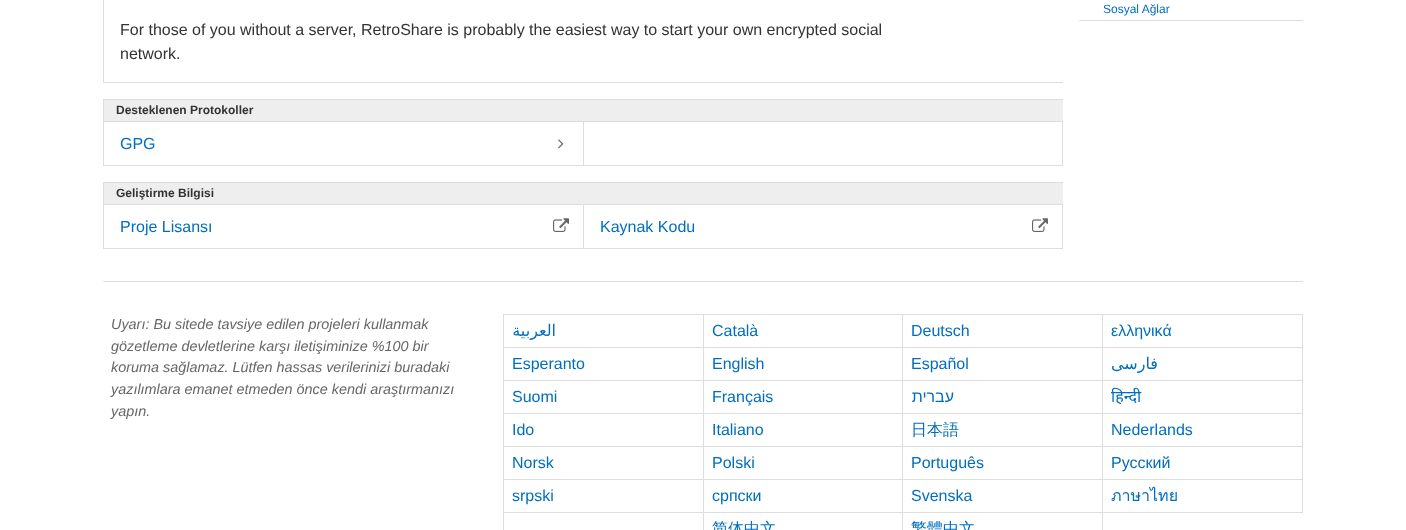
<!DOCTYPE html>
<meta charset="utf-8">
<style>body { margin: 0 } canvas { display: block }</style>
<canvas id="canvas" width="1406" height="530"></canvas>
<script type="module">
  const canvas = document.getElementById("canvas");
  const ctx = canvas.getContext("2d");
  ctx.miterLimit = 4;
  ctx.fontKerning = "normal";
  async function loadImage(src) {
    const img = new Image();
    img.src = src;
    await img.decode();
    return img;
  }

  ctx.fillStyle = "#ffffff";
  ctx.fillRect(0, 0, 1406, 530);
  ctx.fillStyle = "#dddddd";
  ctx.fillRect(1079, 20, 224, 1);
  ctx.font = "12px Liberation Sans";
  ctx.fillStyle = "#006ebd";
  ctx.fillText("Sosyal Ağlar", 1103, 13);
  ctx.fillStyle = "#dddddd";
  ctx.fillRect(103, 0, 1, 83);
  ctx.fillRect(104, 82, 959, 1);
  ctx.font = "16px Liberation Sans";
  ctx.fillStyle = "#333333";
  ctx.fillText("For those of you without a server, RetroShare is probably the easiest way to start your own encrypted social", 120, 35);
  ctx.fillText("network.", 120, 59);
  ctx.fillStyle = "#dddddd";
  ctx.fillRect(103, 99, 960, 1);
  ctx.fillRect(103, 99, 1, 67);
  ctx.fillStyle = "#eeeeee";
  ctx.fillRect(104, 100, 959, 21);
  ctx.fillStyle = "#dddddd";
  ctx.fillRect(104, 121, 959, 1);
  ctx.font = "bold 12px Liberation Sans";
  ctx.fillStyle = "#333333";
  ctx.fillText("Desteklenen Protokoller", 116, 114);
  ctx.fillStyle = "#dddddd";
  ctx.fillRect(583, 122, 1, 44);
  ctx.fillRect(104, 165, 480, 1);
  ctx.font = "16px Liberation Sans";
  ctx.fillStyle = "#006ebd";
  ctx.fillText("GPG", 120, 149);
  ctx.drawImage(await loadImage("img1.png"), 558, 139, 6, 10);
  ctx.fillStyle = "#dddddd";
  ctx.fillRect(1062, 122, 1, 44);
  ctx.fillRect(584, 165, 479, 1);
  ctx.fillRect(103, 182, 960, 1);
  ctx.fillRect(103, 182, 1, 67);
  ctx.fillStyle = "#eeeeee";
  ctx.fillRect(104, 183, 959, 21);
  ctx.fillStyle = "#dddddd";
  ctx.fillRect(104, 204, 959, 1);
  ctx.font = "bold 12px Liberation Sans";
  ctx.fillStyle = "#333333";
  ctx.fillText("Geliştirme Bilgisi", 116, 197);
  ctx.fillStyle = "#dddddd";
  ctx.fillRect(583, 205, 1, 44);
  ctx.fillRect(104, 248, 480, 1);
  ctx.font = "16px Liberation Sans";
  ctx.fillStyle = "#006ebd";
  ctx.fillText("Proje Lisansı", 120, 232);
  ctx.drawImage(await loadImage("img2.png"), 553, 218, 16, 14);
  ctx.fillStyle = "#dddddd";
  ctx.fillRect(1062, 205, 1, 44);
  ctx.fillRect(584, 248, 479, 1);
  ctx.fillStyle = "#006ebd";
  ctx.fillText("Kaynak Kodu", 600, 232);
  ctx.drawImage(await loadImage("img2.png"), 1032, 218, 16, 14);
  ctx.fillStyle = "#dddddd";
  ctx.fillRect(103, 281, 1200, 1);
  ctx.font = "italic 14.4px Liberation Sans";
  ctx.fillStyle = "#666666";
  ctx.fillText("Uyarı: Bu sitede tavsiye edilen projeleri kullanmak", 111, 329);
  ctx.fillText("gözetleme devletlerine karşı iletişiminize %100 bir", 111, 351);
  ctx.fillText("koruma sağlamaz. Lütfen hassas verilerinizi buradaki", 111, 372);
  ctx.fillText("yazılımlara emanet etmeden önce kendi araştırmanızı", 111, 394);
  ctx.fillText("yapın.", 111, 416);
  ctx.fillStyle = "#dddddd";
  ctx.fillRect(503, 314, 800, 1);
  ctx.fillRect(503, 314, 1, 216);
  ctx.fillRect(703, 315, 1, 215);
  ctx.fillRect(504, 347, 200, 1);
  ctx.direction = "rtl";
  ctx.font = "16px DejaVu Sans";
  ctx.fillStyle = "#006ebd";
  ctx.fillText("العربية", 556, 336);
  ctx.fillStyle = "#dddddd";
  ctx.fillRect(902, 315, 1, 215);
  ctx.fillRect(704, 347, 199, 1);
  ctx.direction = "ltr";
  ctx.font = "16px Liberation Sans";
  ctx.fillStyle = "#006ebd";
  ctx.fillText("Català", 712, 336);
  ctx.fillStyle = "#dddddd";
  ctx.fillRect(1102, 315, 1, 215);
  ctx.fillRect(903, 347, 200, 1);
  ctx.fillStyle = "#006ebd";
  ctx.fillText("Deutsch", 911, 336);
  ctx.fillStyle = "#dddddd";
  ctx.fillRect(1302, 315, 1, 198);
  ctx.fillRect(1103, 347, 200, 1);
  ctx.fillStyle = "#006ebd";
  ctx.fillText("ελληνικά", 1111, 336);
  ctx.fillStyle = "#dddddd";
  ctx.fillRect(504, 380, 799, 1);
  ctx.fillStyle = "#006ebd";
  ctx.fillText("Esperanto", 512, 369);
  ctx.fillText("English", 712, 369);
  ctx.fillText("Español", 911, 369);
  ctx.direction = "rtl";
  ctx.font = "16px DejaVu Sans";
  ctx.fillText("فارسی", 1158, 369);
  ctx.fillStyle = "#dddddd";
  ctx.fillRect(504, 413, 799, 1);
  ctx.direction = "ltr";
  ctx.font = "16px Liberation Sans";
  ctx.fillStyle = "#006ebd";
  ctx.fillText("Suomi", 512, 402);
  ctx.fillText("Français", 712, 402);
  ctx.direction = "rtl";
  ctx.fillText("עברית", 954, 402);
  ctx.direction = "ltr";
  ctx.font = "16px Noto Sans";
  ctx.fillText("हिन्दी", 1111, 402);
  ctx.fillStyle = "#dddddd";
  ctx.fillRect(504, 446, 799, 1);
  ctx.font = "16px Liberation Sans";
  ctx.fillStyle = "#006ebd";
  ctx.fillText("Ido", 512, 435);
  ctx.fillText("Italiano", 712, 435);
  ctx.font = "500 16px WenQuanYi Zen Hei";
  ctx.fillText("日本語", 911, 435);
  ctx.font = "16px Liberation Sans";
  ctx.fillText("Nederlands", 1111, 435);
  ctx.fillStyle = "#dddddd";
  ctx.fillRect(504, 479, 799, 1);
  ctx.fillStyle = "#006ebd";
  ctx.fillText("Norsk", 512, 468);
  ctx.fillText("Polski", 712, 468);
  ctx.fillText("Português", 911, 468);
  ctx.fillText("Русский", 1111, 468);
  ctx.fillStyle = "#dddddd";
  ctx.fillRect(504, 512, 799, 1);
  ctx.fillStyle = "#006ebd";
  ctx.fillText("srpski", 512, 501);
  ctx.fillText("српски", 712, 501);
  ctx.fillText("Svenska", 911, 501);
  ctx.font = "16px Loma";
  ctx.fillText("ภาษาไทย", 1111, 501);
  ctx.font = "500 16px WenQuanYi Zen Hei";
  ctx.fillText("简体中文", 712, 534);
  ctx.fillText("繁體中文", 911, 534);
</script>
